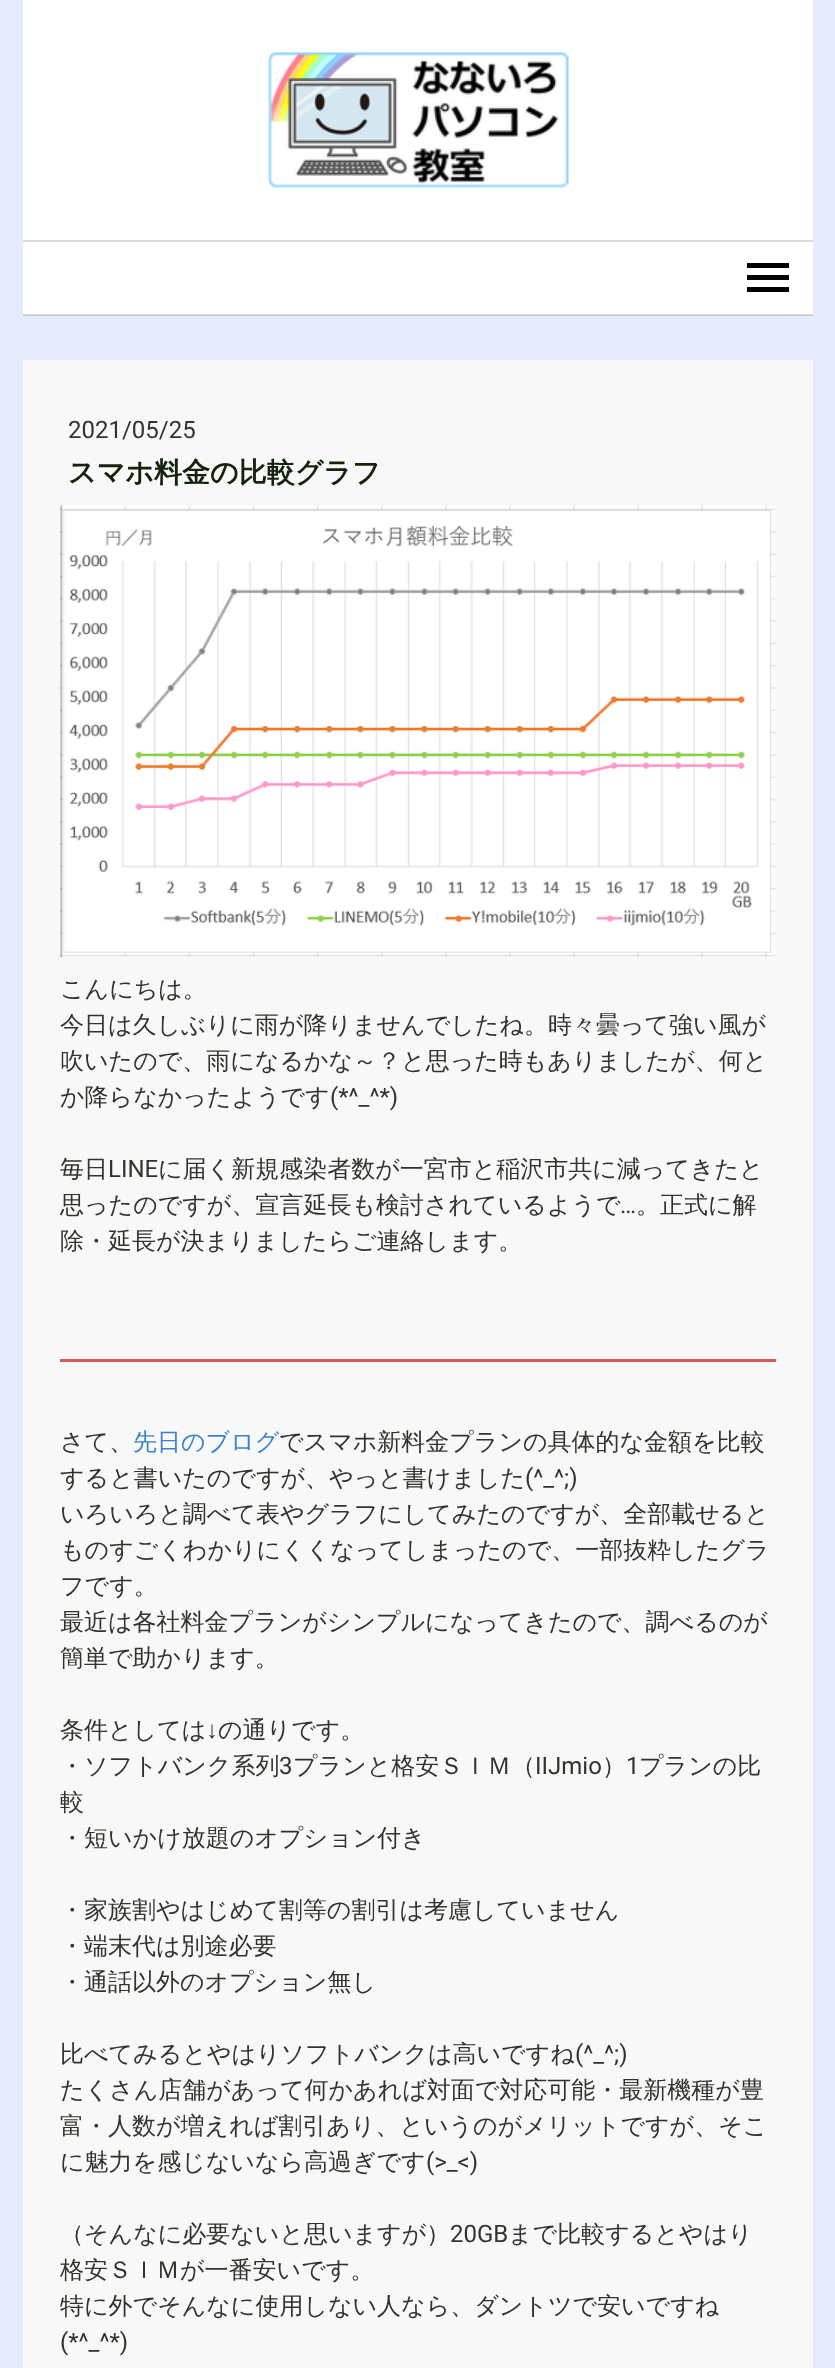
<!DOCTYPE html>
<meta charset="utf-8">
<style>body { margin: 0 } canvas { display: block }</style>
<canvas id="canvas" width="835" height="2368"></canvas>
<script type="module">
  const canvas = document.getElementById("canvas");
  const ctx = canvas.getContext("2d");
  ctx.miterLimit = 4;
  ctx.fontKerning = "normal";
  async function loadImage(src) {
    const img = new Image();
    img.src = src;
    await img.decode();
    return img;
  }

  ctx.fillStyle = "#e6ebfc";
  ctx.fillRect(0, 0, 835, 2368);
  ctx.fillStyle = "#c4c8d6";
  ctx.fillRect(23, 315, 790, 1);
  ctx.fillStyle = "#ffffff";
  ctx.fillRect(23, 0, 790, 314);
  ctx.fillStyle = "#d9d9d9";
  ctx.fillRect(23, 314, 790, 1);
  ctx.drawImage(await loadImage("img1.png"), 268, 52, 301, 136);
  ctx.fillRect(23, 240, 790, 2);
  ctx.fillStyle = "#000000";
  ctx.fillRect(747, 275, 42, 5);
  ctx.fillRect(747, 263, 42, 5);
  ctx.fillRect(747, 287, 42, 5);
  ctx.fillStyle = "#f8f8f8";
  ctx.fillRect(23, 360, 790, 2008);
  ctx.font = "24px Roboto";
  ctx.fillStyle = "#30342d";
  ctx.fillText("2021/05/25", 68, 438);
  ctx.font = "bold 28px WenQuanYi Zen Hei";
  ctx.fillStyle = "#14220c";
  ctx.fillText("スマホ料金の比較グラフ", 68, 482);
  ctx.drawImage(await loadImage("img2.png"), 60, 505, 716, 452);
  ctx.font = "500 24px WenQuanYi Zen Hei";
  ctx.fillStyle = "#30342d";
  ctx.fillText("こんにちは。", 60, 997);
  ctx.fillText("今日は久しぶりに雨が降りませんでしたね。時々曇って強い風が", 60, 1033);
  ctx.fillText("吹いたので、雨になるかな～？と思った時もありましたが、何と", 60, 1069);
  ctx.fillText("か降らなかったようです", 60, 1105);
  ctx.font = "24px Roboto";
  ctx.fillText("(*^_^*)", 330, 1105);
  ctx.font = "500 24px WenQuanYi Zen Hei";
  ctx.fillText("毎日", 60, 1177);
  ctx.font = "24px Roboto";
  ctx.fillText("LINE", 108, 1177);
  ctx.font = "500 24px WenQuanYi Zen Hei";
  ctx.fillText("に届く新規感染者数が一宮市と稲沢市共に減ってきたと", 158, 1177);
  ctx.fillText("思ったのですが、宣言延長も検討されているようで", 60, 1213);
  ctx.font = "24px Roboto";
  ctx.fillText("…", 620, 1213);
  ctx.font = "500 24px WenQuanYi Zen Hei";
  ctx.fillText("。正式に解", 636, 1213);
  ctx.fillText("除・延長が決まりましたらご連絡します。", 60, 1249);
  ctx.fillStyle = "#d75959";
  ctx.fillRect(60, 1359, 716, 3);
  ctx.fillStyle = "#30342d";
  ctx.fillText("さて、", 60, 1450);
  ctx.fillStyle = "#3984c8";
  ctx.fillText("先日のブログ", 133, 1450);
  ctx.fillStyle = "#30342d";
  ctx.fillText("でスマホ新料金プランの具体的な金額を比較", 279, 1450);
  ctx.fillText("すると書いたのですが、やっと書けました", 60, 1486);
  ctx.font = "24px Roboto";
  ctx.fillText("(^_^;)", 525, 1486);
  ctx.font = "500 24px WenQuanYi Zen Hei";
  ctx.fillText("いろいろと調べて表やグラフにしてみたのですが、全部載せると", 60, 1522);
  ctx.fillText("ものすごくわかりにくくなってしまったので、一部抜粋したグラ", 60, 1558);
  ctx.fillText("フです。", 60, 1594);
  ctx.fillText("最近は各社料金プランがシンプルになってきたので、調べるのが", 60, 1630);
  ctx.fillText("簡単で助かります。", 60, 1666);
  ctx.fillText("条件としては", 60, 1738);
  ctx.font = "24px Liberation Sans";
  ctx.fillText("↓", 206, 1738);
  ctx.font = "500 24px WenQuanYi Zen Hei";
  ctx.fillText("の通りです。", 218, 1738);
  ctx.fillText("・ソフトバンク系列", 60, 1774);
  ctx.font = "24px Roboto";
  ctx.fillText("3", 279, 1774);
  ctx.font = "500 24px WenQuanYi Zen Hei";
  ctx.fillText("プランと格安ＳＩＭ（", 293, 1774);
  ctx.font = "24px Roboto";
  ctx.fillText("IIJmio", 535, 1774);
  ctx.font = "500 24px WenQuanYi Zen Hei";
  ctx.fillText("）", 602, 1774);
  ctx.font = "24px Roboto";
  ctx.fillText("1", 626, 1774);
  ctx.font = "500 24px WenQuanYi Zen Hei";
  ctx.fillText("プランの比", 639, 1774);
  ctx.fillText("較", 60, 1810);
  ctx.fillText("・短いかけ放題のオプション付き", 60, 1846);
  ctx.fillText("・家族割やはじめて割等の割引は考慮していません", 60, 1918);
  ctx.fillText("・端末代は別途必要", 60, 1954);
  ctx.fillText("・通話以外のオプション無し", 60, 1990);
  ctx.fillText("比べてみるとやはりソフトバンクは高いですね", 60, 2062);
  ctx.font = "24px Roboto";
  ctx.fillText("(^_^;)", 575, 2062);
  ctx.font = "500 24px WenQuanYi Zen Hei";
  ctx.fillText("たくさん店舗があって何かあれば対面で対応可能・最新機種が豊", 60, 2098);
  ctx.fillText("富・人数が増えれば割引あり、というのがメリットですが、そこ", 60, 2134);
  ctx.fillText("に魅力を感じないなら高過ぎです", 60, 2170);
  ctx.font = "24px Roboto";
  ctx.fillText("(>_<)", 426, 2170);
  ctx.font = "500 24px WenQuanYi Zen Hei";
  ctx.fillText("（そんなに必要ないと思いますが）", 60, 2242);
  ctx.font = "24px Roboto";
  ctx.fillText("20GB", 450, 2242);
  ctx.font = "500 24px WenQuanYi Zen Hei";
  ctx.fillText("まで比較するとやはり", 508, 2242);
  ctx.fillText("格安ＳＩＭが一番安いです。", 60, 2278);
  ctx.fillText("特に外でそんなに使用しない人なら、ダントツで安いですね", 60, 2314);
  ctx.font = "24px Roboto";
  ctx.fillText("(*^_^*)", 60, 2350);
</script>
